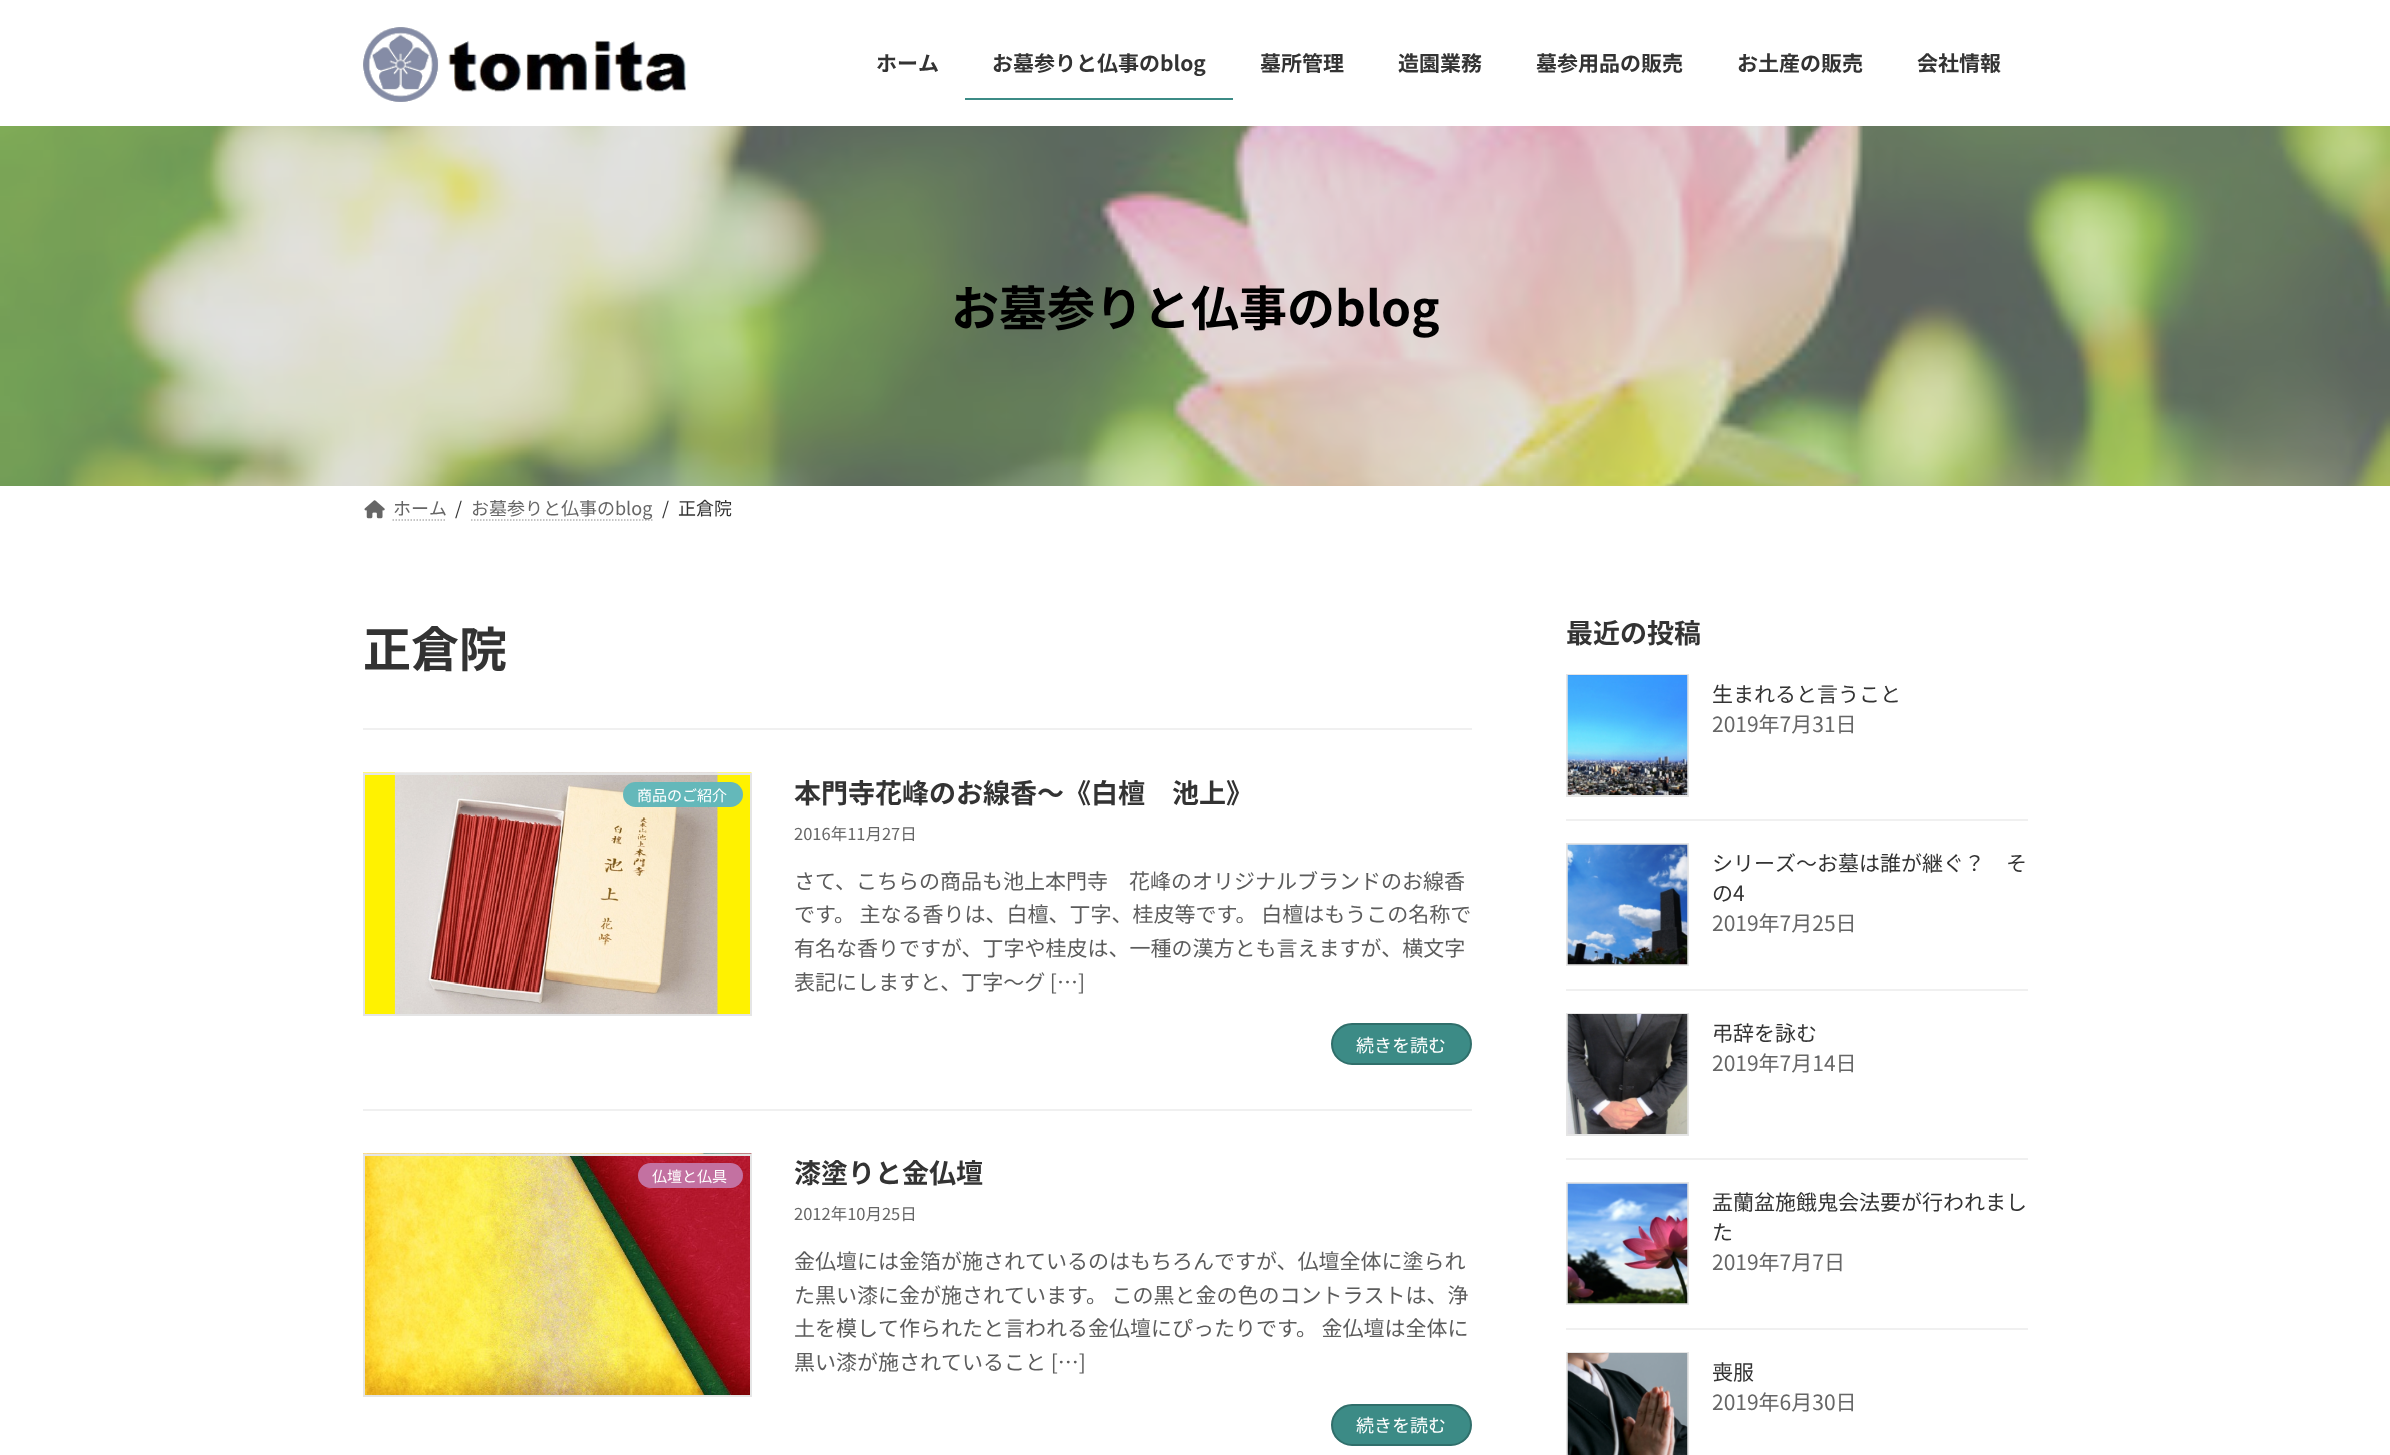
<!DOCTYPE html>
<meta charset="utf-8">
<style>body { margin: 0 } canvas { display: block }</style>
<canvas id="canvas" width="2390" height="1455"></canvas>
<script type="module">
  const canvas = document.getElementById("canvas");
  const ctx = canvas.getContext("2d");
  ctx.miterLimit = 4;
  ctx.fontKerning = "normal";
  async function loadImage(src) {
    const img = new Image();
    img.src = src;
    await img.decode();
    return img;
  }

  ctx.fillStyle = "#ffffff";
  ctx.fillRect(0, 0, 2390, 1455);
  ctx.drawImage(await loadImage("img1.png"), 363, 27, 323, 75);
  ctx.font = "bold 21px Noto Sans JP";
  ctx.fillStyle = "#333333";
  ctx.fillText("ホーム", 876, 71);
  ctx.fillText("お墓参りと仏事のblog", 992, 71);
  ctx.fillStyle = "#3c8b86";
  ctx.fillRect(965, 98, 268, 2);
  ctx.fillStyle = "#333333";
  ctx.fillText("墓所管理", 1260, 71);
  ctx.fillText("造園業務", 1398, 71);
  ctx.fillText("墓参用品の販売", 1536, 71);
  ctx.fillText("お土産の販売", 1737, 71);
  ctx.fillText("会社情報", 1917, 71);
  ctx.drawImage(await loadImage("img2.png"), 0, 126, 2390, 360);
  ctx.font = "bold 48px Noto Sans JP";
  ctx.fillStyle = "#000000";
  ctx.fillText("お墓参りと仏事のblog", 951, 326);
  ctx.drawImage(await loadImage("img3.png"), 364, 500, 21, 19);
  ctx.font = "18px Noto Sans JP";
  ctx.fillStyle = "#666666";
  ctx.fillText("ホーム", 393, 515);
  ctx.beginPath();
  ctx.moveTo(392.5, 520);
  ctx.lineTo(446, 520);
  ctx.strokeStyle = "#b3b3b3";
  ctx.lineWidth = 1.5;
  ctx.setLineDash([1.5, 1.5]);
  ctx.stroke();
  ctx.fillStyle = "#333333";
  ctx.fillText("/", 455, 515);
  ctx.beginPath();
  ctx.moveTo(471, 520);
  ctx.lineTo(652.5, 520);
  ctx.stroke();
  ctx.fillStyle = "#666666";
  ctx.fillText("お墓参りと仏事のblog", 471, 515);
  ctx.fillStyle = "#333333";
  ctx.fillText("/", 662, 515);
  ctx.fillText("正倉院", 678, 515);
  ctx.font = "bold 48px Noto Sans JP";
  ctx.fillText("正倉院", 363, 667);
  ctx.fillStyle = "#f0f0f0";
  ctx.fillRect(363, 728, 1109, 2);
  ctx.fillRect(363, 1109, 1109, 2);
  ctx.drawImage(await loadImage("img4.png"), 363, 772, 389, 242);
  ctx.strokeStyle = "#e5e5e5";
  ctx.lineWidth = 2;
  ctx.setLineDash([]);
  ctx.strokeRect(364, 774, 387, 241);
  ctx.fillStyle = "#64b8ba";
  ctx.beginPath();
  ctx.roundRect(623, 782, 120, 25, 12.5);
  ctx.fill();
  ctx.font = "15px Noto Sans JP";
  ctx.fillStyle = "#ffffff";
  ctx.fillText("商品のご紹介", 637, 801);
  ctx.font = "bold 27px Noto Sans JP";
  ctx.fillStyle = "#333333";
  ctx.fillText("本門寺花峰のお線香～《白檀　池上》", 794, 803);
  ctx.font = "16.5px Noto Sans JP";
  ctx.fillStyle = "#666666";
  ctx.fillText("2016年11月27日", 794, 840);
  ctx.font = "21px Noto Sans JP";
  ctx.fillStyle = "#5c5c5c";
  ctx.fillText("さて、こちらの商品も池上本門寺　花峰のオリジナルブランドのお線香", 794, 889);
  ctx.fillText("です。 主なる香りは、白檀、丁字、桂皮等です。 白檀はもうこの名称で", 794, 922);
  ctx.fillText("有名な香りですが、丁字や桂皮は、一種の漢方とも言えますが、横文字", 794, 956);
  ctx.fillText("表記にしますと、丁字〜グ […]", 794, 990);
  ctx.fillStyle = "#3c8b86";
  ctx.beginPath();
  ctx.roundRect(1332, 1024, 139, 40, 20);
  ctx.fill();
  ctx.strokeStyle = "#306f6b";
  ctx.stroke();
  ctx.font = "18px Noto Sans JP";
  ctx.fillStyle = "#ffffff";
  ctx.fillText("続きを読む", 1356, 1052);
  ctx.drawImage(await loadImage("img5.png"), 363, 1153, 389, 242);
  ctx.strokeStyle = "#e5e5e5";
  ctx.strokeRect(364, 1155, 387, 241);
  ctx.fillStyle = "#c371a1";
  ctx.beginPath();
  ctx.roundRect(638, 1163, 105, 25, 12.5);
  ctx.fill();
  ctx.font = "15px Noto Sans JP";
  ctx.fillStyle = "#ffffff";
  ctx.fillText("仏壇と仏具", 652, 1182);
  ctx.font = "bold 27px Noto Sans JP";
  ctx.fillStyle = "#333333";
  ctx.fillText("漆塗りと金仏壇", 794, 1183);
  ctx.font = "16.5px Noto Sans JP";
  ctx.fillStyle = "#666666";
  ctx.fillText("2012年10月25日", 794, 1220);
  ctx.font = "21px Noto Sans JP";
  ctx.fillStyle = "#5c5c5c";
  ctx.fillText("金仏壇には金箔が施されているのはもちろんですが、仏壇全体に塗られ", 794, 1269);
  ctx.fillText("た黒い漆に金が施されています。 この黒と金の色のコントラストは、浄", 794, 1303);
  ctx.fillText("土を模して作られたと言われる金仏壇にぴったりです。 金仏壇は全体に", 794, 1336);
  ctx.fillText("黒い漆が施されていること […]", 794, 1370);
  ctx.fillStyle = "#3c8b86";
  ctx.beginPath();
  ctx.roundRect(1332, 1405, 139, 40, 20);
  ctx.fill();
  ctx.strokeStyle = "#306f6b";
  ctx.stroke();
  ctx.font = "18px Noto Sans JP";
  ctx.fillStyle = "#ffffff";
  ctx.fillText("続きを読む", 1356, 1432);
  ctx.font = "bold 27px Noto Sans JP";
  ctx.fillStyle = "#333333";
  ctx.fillText("最近の投稿", 1566, 643);
  ctx.fillStyle = "#f0f0f0";
  ctx.fillRect(1566, 819, 462, 2);
  ctx.strokeStyle = "#e5e5e5";
  ctx.strokeRect(1567, 675, 121, 121);
  ctx.drawImage(await loadImage("img6.png"), 1567, 675, 121, 120);
  ctx.font = "21px Noto Sans JP";
  ctx.fillStyle = "#333333";
  ctx.fillText("生まれると言うこと", 1712, 702);
  ctx.fillStyle = "#666666";
  ctx.fillText("2019年7月31日", 1712, 732);
  ctx.fillStyle = "#f0f0f0";
  ctx.fillRect(1566, 989, 462, 2);
  ctx.strokeRect(1567, 844, 121, 121);
  ctx.drawImage(await loadImage("img7.png"), 1567, 844, 121, 121);
  ctx.fillStyle = "#333333";
  ctx.fillText("シリーズ～お墓は誰が継ぐ？　そ", 1712, 871);
  ctx.fillText("の4", 1712, 901);
  ctx.fillStyle = "#666666";
  ctx.fillText("2019年7月25日", 1712, 931);
  ctx.fillStyle = "#f0f0f0";
  ctx.fillRect(1566, 1158, 462, 2);
  ctx.strokeRect(1567, 1014, 121, 121);
  ctx.drawImage(await loadImage("img8.png"), 1567, 1014, 121, 120);
  ctx.fillStyle = "#333333";
  ctx.fillText("弔辞を詠む", 1712, 1041);
  ctx.fillStyle = "#666666";
  ctx.fillText("2019年7月14日", 1712, 1071);
  ctx.fillStyle = "#f0f0f0";
  ctx.fillRect(1566, 1328, 462, 2);
  ctx.strokeRect(1567, 1183, 121, 121);
  ctx.drawImage(await loadImage("img9.png"), 1567, 1183, 121, 121);
  ctx.fillStyle = "#333333";
  ctx.fillText("盂蘭盆施餓鬼会法要が行われまし", 1712, 1210);
  ctx.fillText("た", 1712, 1240);
  ctx.fillStyle = "#666666";
  ctx.fillText("2019年7月7日", 1712, 1270);
  ctx.strokeRect(1567, 1353, 121, 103);
  ctx.drawImage(await loadImage("img10.png"), 1567, 1353, 121, 102);
  ctx.fillStyle = "#333333";
  ctx.fillText("喪服", 1712, 1380);
  ctx.fillStyle = "#666666";
  ctx.fillText("2019年6月30日", 1712, 1410);
</script>
